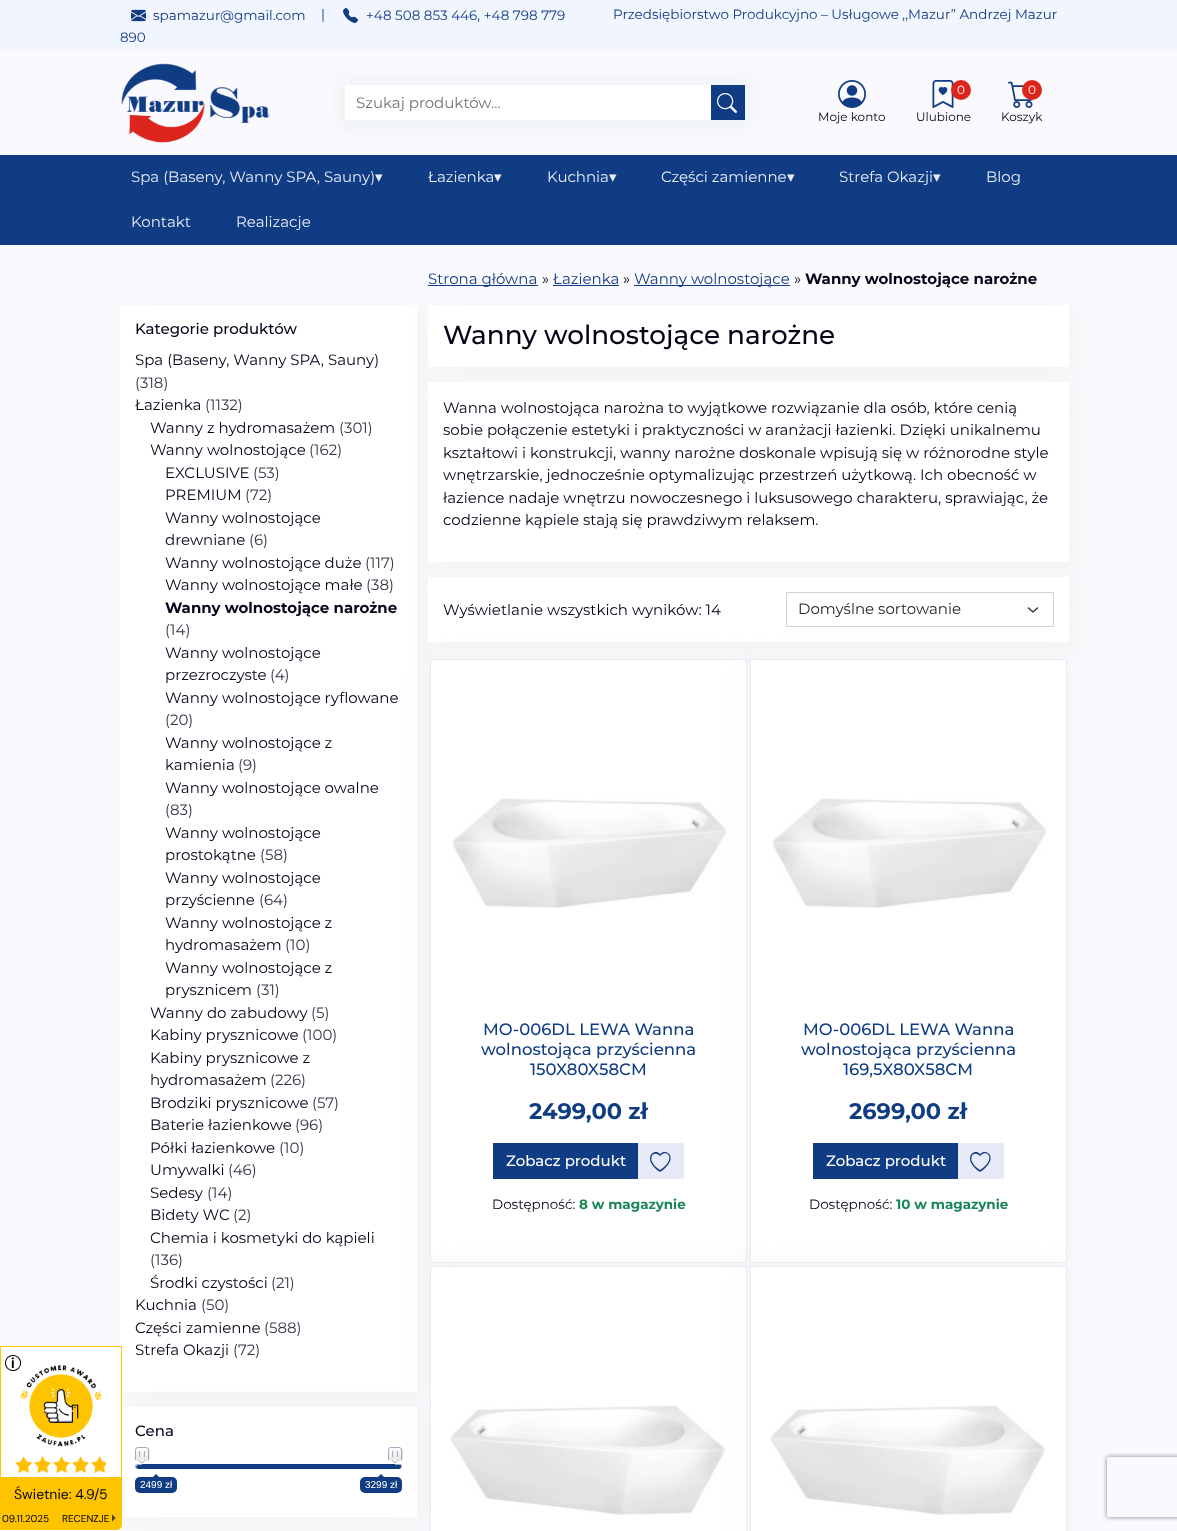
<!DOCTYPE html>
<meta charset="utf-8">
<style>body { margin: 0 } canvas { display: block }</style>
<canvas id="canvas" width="1177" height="1531"></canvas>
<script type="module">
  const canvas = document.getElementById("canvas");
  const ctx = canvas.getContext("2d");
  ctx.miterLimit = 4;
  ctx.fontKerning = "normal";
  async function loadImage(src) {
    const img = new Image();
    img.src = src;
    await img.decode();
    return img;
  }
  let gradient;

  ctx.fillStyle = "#fafafe";
  ctx.fillRect(0, 0, 1177, 1531);
  ctx.fillStyle = "#f3f3f3";
  ctx.filter = "blur(12px)";
  ctx.beginPath();
  ctx.rect(128, 313, 297, 1087);
  ctx.fill();
  ctx.filter = "none";
  ctx.fillStyle = "#ffffff";
  ctx.fillRect(120, 305, 297, 1087);
  ctx.fillStyle = "#f3f3f3";
  ctx.filter = "blur(12px)";
  ctx.beginPath();
  ctx.rect(128, 1415, 297, 110);
  ctx.fill();
  ctx.filter = "none";
  ctx.fillStyle = "#ffffff";
  ctx.beginPath();
  ctx.roundRect(0, 1346, 123, 185, [0, 5, 5, 0]);
  ctx.fill();
  ctx.strokeStyle = "#ffc400";
  ctx.strokeRect(0.5, 1346.5, 121, 131);
  ctx.drawImage(await loadImage("img1.png"), 19, 1365, 83, 82);
  ctx.drawImage(await loadImage("img2.png"), 15, 1456, 91, 18);
  ctx.drawImage(await loadImage("img3.png"), 5, 1355, 16, 16);
  ctx.fillStyle = "#ffc400";
  ctx.beginPath();
  ctx.roundRect(0, 1478, 122, 52, [0, 0, 5, 0]);
  ctx.fill();
  ctx.font = "14px DM Sans";
  ctx.fillStyle = "#060417";
  ctx.fillText("Świetnie: 4.9", 14, 1499);
  ctx.fillText("/", 94, 1499);
  ctx.fillText("5", 99, 1499);
  ctx.font = "10px DM Sans";
  ctx.fillText("09.11.2025", 2, 1522);
  ctx.fillStyle = "#000000";
  ctx.fillText("RECENZJE", 62, 1522);
  ctx.drawImage(await loadImage("img4.png"), 112, 1514, 4, 8);
  ctx.fillStyle = "#f1f5fe";
  ctx.fillRect(0, 0, 1177, 51);
  ctx.drawImage(await loadImage("img5.png"), 131, 9, 15, 13);
  ctx.font = "100 13.5px Montserrat";
  ctx.fillStyle = "#103c83";
  ctx.fillText("spamazur@gmail.com", 153, 20);
  ctx.fillText("|", 321, 19);
  ctx.drawImage(await loadImage("img6.png"), 343, 8, 15, 15);
  ctx.fillText("+48 508 853 446, +48 798 779", 366, 20);
  ctx.fillText("890", 120, 42);
  ctx.fillText("Przedsiębiorstwo Produkcyjno – Usługowe ,,Mazur” Andrzej Mazur", 613, 19);
  ctx.drawImage(await loadImage("img7.png"), 121, 63, 149, 80);
  ctx.fillStyle = "#f0f3f7";
  ctx.filter = "blur(6.5px)";
  ctx.beginPath();
  ctx.rect(336, 76, 418, 53);
  ctx.fill();
  ctx.filter = "none";
  ctx.fillStyle = "#ffffff";
  ctx.fillRect(345, 85, 366, 35);
  ctx.font = "100 15px Montserrat";
  ctx.fillStyle = "#6c757d";
  ctx.fillText("Szukaj produktów...", 356, 108);
  ctx.fillStyle = "#103c83";
  ctx.fillRect(711, 85, 34, 35);
  ctx.drawImage(await loadImage("img8.png"), 717, 93, 20, 20);
  ctx.drawImage(await loadImage("img9.png"), 838, 80, 28, 28);
  ctx.font = "100 12px Montserrat";
  ctx.fillStyle = "#060417";
  ctx.fillText("Moje konto", 818, 121);
  ctx.drawImage(await loadImage("img10.png"), 932, 80, 22, 28);
  ctx.fillStyle = "#dc251d";
  ctx.beginPath();
  ctx.arc(961, 90, 10, 0, Math.PI * 2);
  ctx.fill();
  ctx.fillStyle = "#ffffff";
  ctx.fillText("0", 957, 94);
  ctx.fillStyle = "#060417";
  ctx.fillText("Ulubione", 916, 121);
  ctx.drawImage(await loadImage("img11.png"), 1008, 81, 25, 27);
  ctx.fillStyle = "#dc251d";
  ctx.beginPath();
  ctx.arc(1032, 90, 10, 0, Math.PI * 2);
  ctx.fill();
  ctx.fillStyle = "#ffffff";
  ctx.fillText("0", 1028, 94);
  ctx.fillStyle = "#060417";
  ctx.fillText("Koszyk", 1001, 121);
  ctx.fillStyle = "#103c83";
  ctx.fillRect(0, 155, 1177, 90);
  ctx.font = "100 15px Montserrat";
  ctx.fillStyle = "#e7ebf7";
  ctx.fillText("Spa (Baseny, Wanny SPA, Sauny)", 131, 182);
  ctx.font = "15px DejaVu Sans";
  ctx.fillText("▾", 375, 182);
  ctx.font = "100 15px Montserrat";
  ctx.fillText("Łazienka", 428, 182);
  ctx.font = "15px DejaVu Sans";
  ctx.fillText("▾", 494, 182);
  ctx.font = "100 15px Montserrat";
  ctx.fillText("Kuchnia", 547, 182);
  ctx.font = "15px DejaVu Sans";
  ctx.fillText("▾", 609, 182);
  ctx.font = "100 15px Montserrat";
  ctx.fillText("Części zamienne", 661, 182);
  ctx.font = "15px DejaVu Sans";
  ctx.fillText("▾", 787, 182);
  ctx.font = "100 15px Montserrat";
  ctx.fillText("Strefa Okazji", 839, 182);
  ctx.font = "15px DejaVu Sans";
  ctx.fillText("▾", 933, 182);
  ctx.font = "100 15px Montserrat";
  ctx.fillText("Blog", 986, 182);
  ctx.fillText("Kontakt", 131, 227);
  ctx.fillText("Realizacje", 236, 227);
  ctx.font = "100 15px 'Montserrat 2'";
  ctx.fillStyle = "#060417";
  ctx.fillText("Kategorie produktów", 135, 334);
  ctx.font = "100 15px Montserrat";
  ctx.fillText("Spa (Baseny, Wanny SPA, Sauny)", 135, 365);
  ctx.fillStyle = "#383645";
  ctx.fillText("(318)", 135, 388);
  ctx.fillStyle = "#060417";
  ctx.fillText("Łazienka", 135, 410);
  ctx.fillStyle = "#383645";
  ctx.fillText("(1132)", 205, 410);
  ctx.fillStyle = "#060417";
  ctx.fillText("Wanny z hydromasażem", 150, 433);
  ctx.fillStyle = "#383645";
  ctx.fillText("(301)", 339, 433);
  ctx.fillStyle = "#060417";
  ctx.fillText("Wanny wolnostojące", 150, 455);
  ctx.fillStyle = "#383645";
  ctx.fillText("(162)", 309, 455);
  ctx.fillStyle = "#060417";
  ctx.fillText("EXCLUSIVE", 165, 478);
  ctx.fillStyle = "#383645";
  ctx.fillText("(53)", 253, 478);
  ctx.fillStyle = "#060417";
  ctx.fillText("PREMIUM", 165, 500);
  ctx.fillStyle = "#383645";
  ctx.fillText("(72)", 245, 500);
  ctx.fillStyle = "#060417";
  ctx.fillText("Wanny wolnostojące", 165, 523);
  ctx.fillText("drewniane", 165, 545);
  ctx.fillStyle = "#383645";
  ctx.fillText("(6)", 249, 545);
  ctx.fillStyle = "#060417";
  ctx.fillText("Wanny wolnostojące duże", 165, 568);
  ctx.fillStyle = "#383645";
  ctx.fillText("(117)", 365, 568);
  ctx.fillStyle = "#060417";
  ctx.fillText("Wanny wolnostojące małe", 165, 590);
  ctx.fillStyle = "#383645";
  ctx.fillText("(38)", 366, 590);
  ctx.font = "100 15px 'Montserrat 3'";
  ctx.fillStyle = "#060417";
  ctx.fillText("Wanny wolnostojące narożne", 165, 613);
  ctx.font = "100 15px Montserrat";
  ctx.fillStyle = "#383645";
  ctx.fillText("(14)", 165, 635);
  ctx.fillStyle = "#060417";
  ctx.fillText("Wanny wolnostojące", 165, 658);
  ctx.fillText("przezroczyste", 165, 680);
  ctx.fillStyle = "#383645";
  ctx.fillText("(4)", 270, 680);
  ctx.fillStyle = "#060417";
  ctx.fillText("Wanny wolnostojące ryflowane", 165, 703);
  ctx.fillStyle = "#383645";
  ctx.fillText("(20)", 165, 725);
  ctx.fillStyle = "#060417";
  ctx.fillText("Wanny wolnostojące z", 165, 748);
  ctx.fillText("kamienia", 165, 770);
  ctx.fillStyle = "#383645";
  ctx.fillText("(9)", 238, 770);
  ctx.fillStyle = "#060417";
  ctx.fillText("Wanny wolnostojące owalne", 165, 793);
  ctx.fillStyle = "#383645";
  ctx.fillText("(83)", 165, 815);
  ctx.fillStyle = "#060417";
  ctx.fillText("Wanny wolnostojące", 165, 838);
  ctx.fillText("prostokątne", 165, 860);
  ctx.fillStyle = "#383645";
  ctx.fillText("(58)", 260, 860);
  ctx.fillStyle = "#060417";
  ctx.fillText("Wanny wolnostojące", 165, 883);
  ctx.fillText("przyścienne", 165, 905);
  ctx.fillStyle = "#383645";
  ctx.fillText("(64)", 259, 905);
  ctx.fillStyle = "#060417";
  ctx.fillText("Wanny wolnostojące z", 165, 928);
  ctx.fillText("hydromasażem", 165, 950);
  ctx.fillStyle = "#383645";
  ctx.fillText("(10)", 285, 950);
  ctx.fillStyle = "#060417";
  ctx.fillText("Wanny wolnostojące z", 165, 973);
  ctx.fillText("prysznicem", 165, 995);
  ctx.fillStyle = "#383645";
  ctx.fillText("(31)", 256, 995);
  ctx.fillStyle = "#060417";
  ctx.fillText("Wanny do zabudowy", 150, 1018);
  ctx.fillStyle = "#383645";
  ctx.fillText("(5)", 311, 1018);
  ctx.fillStyle = "#060417";
  ctx.fillText("Kabiny prysznicowe", 150, 1040);
  ctx.fillStyle = "#383645";
  ctx.fillText("(100)", 302, 1040);
  ctx.fillStyle = "#060417";
  ctx.fillText("Kabiny prysznicowe z", 150, 1063);
  ctx.fillText("hydromasażem", 150, 1085);
  ctx.fillStyle = "#383645";
  ctx.fillText("(226)", 270, 1085);
  ctx.fillStyle = "#060417";
  ctx.fillText("Brodziki prysznicowe", 150, 1108);
  ctx.fillStyle = "#383645";
  ctx.fillText("(57)", 312, 1108);
  ctx.fillStyle = "#060417";
  ctx.fillText("Baterie łazienkowe", 150, 1130);
  ctx.fillStyle = "#383645";
  ctx.fillText("(96)", 295, 1130);
  ctx.fillStyle = "#060417";
  ctx.fillText("Półki łazienkowe", 150, 1153);
  ctx.fillStyle = "#383645";
  ctx.fillText("(10)", 279, 1153);
  ctx.fillStyle = "#060417";
  ctx.fillText("Umywalki", 150, 1175);
  ctx.fillStyle = "#383645";
  ctx.fillText("(46)", 228, 1175);
  ctx.fillStyle = "#060417";
  ctx.fillText("Sedesy", 150, 1198);
  ctx.fillStyle = "#383645";
  ctx.fillText("(14)", 207, 1198);
  ctx.fillStyle = "#060417";
  ctx.fillText("Bidety WC", 150, 1220);
  ctx.fillStyle = "#383645";
  ctx.fillText("(2)", 233, 1220);
  ctx.fillStyle = "#060417";
  ctx.fillText("Chemia i kosmetyki do kąpieli", 150, 1243);
  ctx.fillStyle = "#383645";
  ctx.fillText("(136)", 150, 1265);
  ctx.fillStyle = "#060417";
  ctx.fillText("Środki czystości", 150, 1288);
  ctx.fillStyle = "#383645";
  ctx.fillText("(21)", 271, 1288);
  ctx.fillStyle = "#060417";
  ctx.fillText("Kuchnia", 135, 1310);
  ctx.fillStyle = "#383645";
  ctx.fillText("(50)", 201, 1310);
  ctx.fillStyle = "#060417";
  ctx.fillText("Części zamienne", 135, 1333);
  ctx.fillStyle = "#383645";
  ctx.fillText("(588)", 264, 1333);
  ctx.fillStyle = "#060417";
  ctx.fillText("Strefa Okazji", 135, 1355);
  ctx.fillStyle = "#383645";
  ctx.fillText("(72)", 233, 1355);
  ctx.fillStyle = "#ffffff";
  ctx.fillRect(123, 1407, 294, 110);
  ctx.font = "100 15px 'Montserrat 2'";
  ctx.fillStyle = "#060417";
  ctx.fillText("Cena", 135, 1436);
  ctx.fillStyle = "rgba(0, 0, 0, 0.1)";
  ctx.filter = "blur(0.5px)";
  ctx.beginPath();
  ctx.roundRect(136, 1448, 14, 13, 3);
  ctx.fill();
  ctx.filter = "none";
  ctx.fillStyle = "#a3adc1";
  ctx.beginPath();
  ctx.moveTo(138, 1447);
  ctx.lineTo(146, 1447);
  ctx.bezierCurveTo(147.5, 1447, 149, 1448.5, 149, 1450);
  ctx.lineTo(149, 1460);
  ctx.lineTo(135, 1460);
  ctx.lineTo(135, 1450);
  ctx.bezierCurveTo(135, 1448.5, 136.5, 1447, 138, 1447);
  ctx.closePath();
  ctx.moveTo(138, 1448);
  ctx.lineTo(146, 1448);
  ctx.bezierCurveTo(147, 1448, 148, 1449, 148, 1450);
  ctx.lineTo(148, 1460);
  ctx.lineTo(136, 1460);
  ctx.lineTo(136, 1450);
  ctx.bezierCurveTo(136, 1449, 137, 1448, 138, 1448);
  ctx.closePath();
  ctx.fill("evenodd");
  ctx.fillStyle = "#ffffff";
  ctx.beginPath();
  ctx.moveTo(142, 1455);
  ctx.lineTo(146, 1459.5);
  ctx.lineTo(141.5, 1463.5);
  ctx.lineTo(137.5, 1459.5);
  ctx.closePath();
  ctx.fill();
  ctx.beginPath();
  ctx.moveTo(142, 1456);
  ctx.lineTo(145.5, 1459.5);
  ctx.lineTo(142, 1463);
  ctx.lineTo(138, 1459.5);
  ctx.closePath();
  ctx.strokeStyle = "#a3adc1";
  ctx.stroke();
  gradient = ctx.createLinearGradient(142, 1448, 142, 1460);
  gradient.addColorStop(0, "#ffffff");
  gradient.addColorStop(1, "#e9e6e6");
  ctx.fillStyle = gradient;
  ctx.beginPath();
  ctx.roundRect(136, 1448, 12, 12, [3, 3, 0, 0]);
  ctx.fill();
  ctx.fillStyle = "#a3adc1";
  ctx.fillRect(144, 1451, 1, 6);
  ctx.fillRect(139, 1451, 1, 6);
  ctx.fillStyle = "rgba(0, 0, 0, 0.1)";
  ctx.filter = "blur(0.5px)";
  ctx.beginPath();
  ctx.roundRect(389, 1448, 14, 13, 3);
  ctx.fill();
  ctx.filter = "none";
  ctx.fillStyle = "#103c83";
  ctx.beginPath();
  ctx.moveTo(138, 1465);
  ctx.lineTo(400, 1465);
  ctx.lineTo(401, 1465);
  ctx.bezierCurveTo(401, 1466, 401, 1469, 400, 1469);
  ctx.lineTo(138, 1469);
  ctx.bezierCurveTo(136, 1469, 135, 1465, 138, 1465);
  ctx.closePath();
  ctx.fill();
  ctx.fillStyle = "#a3adc1";
  ctx.beginPath();
  ctx.moveTo(138, 1464);
  ctx.lineTo(400, 1464);
  ctx.bezierCurveTo(401, 1464, 402, 1465, 402, 1466);
  ctx.bezierCurveTo(402, 1468, 401, 1469, 400, 1469);
  ctx.lineTo(138, 1469);
  ctx.bezierCurveTo(136, 1469, 135, 1468, 135, 1466);
  ctx.bezierCurveTo(135, 1465, 136, 1464, 138, 1464);
  ctx.closePath();
  ctx.moveTo(138, 1465);
  ctx.lineTo(400, 1465);
  ctx.lineTo(401, 1465);
  ctx.bezierCurveTo(401, 1466, 401, 1469, 400, 1469);
  ctx.lineTo(138, 1469);
  ctx.bezierCurveTo(136, 1469, 135, 1465, 138, 1465);
  ctx.closePath();
  ctx.fill("evenodd");
  ctx.fillStyle = "#103c83";
  ctx.fillRect(142, 1464, 253, 1);
  ctx.beginPath();
  ctx.roundRect(360, 1477, 42, 16, 5);
  ctx.fill();
  ctx.fillStyle = "#f3f3f3";
  ctx.filter = "blur(12px)";
  ctx.beginPath();
  ctx.rect(436, 313, 641, 62);
  ctx.fill();
  ctx.filter = "none";
  ctx.fillStyle = "#ffffff";
  ctx.fillRect(428, 305, 641, 62);
  ctx.fillStyle = "#f3f3f3";
  ctx.filter = "blur(12px)";
  ctx.beginPath();
  ctx.rect(436, 390, 641, 180);
  ctx.fill();
  ctx.filter = "none";
  ctx.fillStyle = "#ffffff";
  ctx.fillRect(428, 382, 641, 180);
  ctx.fillStyle = "#f3f3f3";
  ctx.filter = "blur(12px)";
  ctx.beginPath();
  ctx.rect(436, 585, 641, 65);
  ctx.fill();
  ctx.filter = "none";
  ctx.fillStyle = "#ffffff";
  ctx.fillRect(428, 577, 641, 65);
  ctx.fillStyle = "#f3f3f3";
  ctx.filter = "blur(12px)";
  ctx.beginPath();
  ctx.rect(431, 660, 315, 602);
  ctx.fill();
  ctx.filter = "none";
  ctx.fillStyle = "#ffffff";
  ctx.fillRect(431, 660, 315, 602);
  ctx.drawImage(await loadImage("img12.png"), 452, 798, 275, 110);
  ctx.fillStyle = "#103c83";
  ctx.fillRect(493, 1143, 145, 36);
  ctx.fillStyle = "#e7ebf7";
  ctx.fillRect(638, 1143, 46, 36);
  ctx.strokeStyle = "#e7ebf7";
  ctx.strokeRect(430.5, 659.5, 316, 603);
  ctx.beginPath();
  ctx.moveTo(1028.5, 608);
  ctx.lineTo(1033, 612);
  ctx.lineTo(1037.5, 608);
  ctx.strokeStyle = "#343a40";
  ctx.lineWidth = 1.5;
  ctx.lineCap = "round";
  ctx.lineJoin = "round";
  ctx.stroke();
  ctx.strokeStyle = "#ced4da";
  ctx.lineWidth = 1;
  ctx.lineJoin = "miter";
  ctx.strokeRect(786.5, 592.5, 267, 34);
  ctx.fillStyle = "#f3f3f3";
  ctx.filter = "blur(12px)";
  ctx.beginPath();
  ctx.rect(751, 660, 315, 602);
  ctx.fill();
  ctx.filter = "none";
  ctx.fillStyle = "#ffffff";
  ctx.fillRect(751, 660, 315, 602);
  ctx.drawImage(await loadImage("img13.png"), 772, 798, 275, 110);
  ctx.fillStyle = "#103c83";
  ctx.fillRect(813, 1143, 145, 36);
  ctx.fillStyle = "#e7ebf7";
  ctx.fillRect(958, 1143, 46, 36);
  ctx.strokeStyle = "#e7ebf7";
  ctx.strokeRect(750.5, 659.5, 316, 603);
  ctx.fillStyle = "#f3f3f3";
  ctx.filter = "blur(12px)";
  ctx.beginPath();
  ctx.rect(431, 1267, 315, 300);
  ctx.fill();
  ctx.filter = "none";
  ctx.fillStyle = "#a3adc1";
  ctx.beginPath();
  ctx.moveTo(391, 1447);
  ctx.lineTo(399, 1447);
  ctx.bezierCurveTo(400.5, 1447, 402, 1448.5, 402, 1450);
  ctx.lineTo(402, 1460);
  ctx.lineTo(388, 1460);
  ctx.lineTo(388, 1450);
  ctx.bezierCurveTo(388, 1448.5, 389.5, 1447, 391, 1447);
  ctx.closePath();
  ctx.moveTo(391, 1448);
  ctx.lineTo(399, 1448);
  ctx.bezierCurveTo(400, 1448, 401, 1449, 401, 1450);
  ctx.lineTo(401, 1460);
  ctx.lineTo(389, 1460);
  ctx.lineTo(389, 1450);
  ctx.bezierCurveTo(389, 1449, 390, 1448, 391, 1448);
  ctx.closePath();
  ctx.fill("evenodd");
  ctx.fillStyle = "#ffffff";
  ctx.beginPath();
  ctx.moveTo(395, 1455);
  ctx.lineTo(399.5, 1459.5);
  ctx.lineTo(395, 1463.5);
  ctx.lineTo(391, 1459.5);
  ctx.closePath();
  ctx.fill();
  ctx.beginPath();
  ctx.moveTo(395, 1456);
  ctx.lineTo(399, 1459.5);
  ctx.lineTo(395, 1463);
  ctx.lineTo(391.5, 1459.5);
  ctx.closePath();
  ctx.strokeStyle = "#a3adc1";
  ctx.lineCap = "butt";
  ctx.stroke();
  gradient = ctx.createLinearGradient(395, 1448, 395, 1460);
  gradient.addColorStop(0, "#ffffff");
  gradient.addColorStop(1, "#e9e6e6");
  ctx.fillStyle = gradient;
  ctx.beginPath();
  ctx.roundRect(389, 1448, 12, 12, [3, 3, 0, 0]);
  ctx.fill();
  ctx.fillStyle = "#a3adc1";
  ctx.fillRect(397, 1451, 1, 6);
  ctx.fillRect(392, 1451, 1, 6);
  ctx.fillStyle = "#103c83";
  ctx.beginPath();
  ctx.roundRect(135, 1477, 42, 16, 5);
  ctx.fill();
  ctx.beginPath();
  ctx.moveTo(159, 1477);
  ctx.lineTo(153, 1477);
  ctx.lineTo(156, 1474);
  ctx.closePath();
  ctx.fill();
  ctx.font = "10px Liberation Sans";
  ctx.fillStyle = "#ffffff";
  ctx.fillText("2499 zł", 140, 1488);
  ctx.fillStyle = "#103c83";
  ctx.beginPath();
  ctx.moveTo(384, 1477);
  ctx.lineTo(378, 1477);
  ctx.lineTo(381, 1474);
  ctx.closePath();
  ctx.fill();
  ctx.fillStyle = "#ffffff";
  ctx.fillText("3299 zł", 365, 1488);
  ctx.fillStyle = "#103c83";
  ctx.fillRect(428, 285, 110, 1);
  ctx.font = "100 15px Montserrat";
  ctx.fillText("Strona główna", 428, 284);
  ctx.fillStyle = "#060417";
  ctx.fillText("»", 542, 284);
  ctx.fillStyle = "#103c83";
  ctx.fillText("Łazienka", 553, 284);
  ctx.fillRect(553, 285, 66, 1);
  ctx.fillStyle = "#060417";
  ctx.fillText("»", 623, 284);
  ctx.fillStyle = "#103c83";
  ctx.fillRect(634, 285, 156, 1);
  ctx.fillText("Wanny wolnostojące", 634, 284);
  ctx.fillStyle = "#060417";
  ctx.fillText("»", 794, 284);
  ctx.font = "100 15px 'Montserrat 3'";
  ctx.fillText("Wanny wolnostojące narożne", 805, 284);
  ctx.font = "100 26.25px 'Montserrat 2'";
  ctx.fillText("Wanny wolnostojące narożne", 443, 344);
  ctx.font = "100 15px Montserrat";
  ctx.fillText("Wanna wolnostojąca narożna to wyjątkowe rozwiązanie dla osób, które cenią", 443, 413);
  ctx.fillText("sobie połączenie estetyki i praktyczności w aranżacji łazienki. Dzięki unikalnemu", 443, 435);
  ctx.fillText("kształtowi i konstrukcji, wanny narożne doskonale wpisują się w różnorodne style", 443, 458);
  ctx.fillText("wnętrzarskie, jednocześnie optymalizując przestrzeń użytkową. Ich obecność w", 443, 480);
  ctx.fillText("łazience nadaje wnętrzu nowoczesnego i luksusowego charakteru, sprawiając, że", 443, 503);
  ctx.fillText("codzienne kąpiele stają się prawdziwym relaksem.", 443, 525);
  ctx.fillText("Wyświetlanie wszystkich wyników: 14", 443, 615);
  ctx.fillStyle = "#212529";
  ctx.fillText("Domyślne sortowanie", 798, 614);
  ctx.font = "100 16.5px 'Montserrat 2'";
  ctx.fillStyle = "#103c83";
  ctx.fillText("MO-006DL LEWA Wanna", 483, 1035);
  ctx.fillText("wolnostojąca przyścienna", 481, 1055);
  ctx.fillText("150X80X58CM", 530, 1075);
  ctx.font = "100 22.5px 'Montserrat 3'";
  ctx.fillText("2499,00 zł", 529, 1119);
  ctx.font = "100 15px 'Montserrat 2'";
  ctx.fillStyle = "#ffffff";
  ctx.fillText("Zobacz produkt", 506, 1166);
  ctx.fillStyle = "#103c83";
  ctx.beginPath();
  ctx.moveTo(660, 1156);
  ctx.bezierCurveTo(654, 1149, 644, 1159, 660, 1170);
  ctx.bezierCurveTo(677, 1159, 667, 1149, 661, 1155);
  ctx.closePath();
  ctx.moveTo(660, 1172);
  ctx.bezierCurveTo(641, 1159, 654, 1147, 660, 1154);
  ctx.bezierCurveTo(667, 1147, 680, 1159, 660, 1172);
  ctx.fill();
  ctx.font = "100 13.5px Montserrat";
  ctx.fillStyle = "#060417";
  ctx.fillText("Dostępność:", 492, 1209);
  ctx.font = "100 13.5px 'Montserrat 3'";
  ctx.fillStyle = "#198754";
  ctx.fillText("8 w magazynie", 579, 1209);
  ctx.font = "100 16.5px 'Montserrat 2'";
  ctx.fillStyle = "#103c83";
  ctx.fillText("MO-006DL LEWA Wanna", 803, 1035);
  ctx.fillText("wolnostojąca przyścienna", 801, 1055);
  ctx.fillText("169,5X80X58CM", 843, 1075);
  ctx.font = "100 22.5px 'Montserrat 3'";
  ctx.fillText("2699,00 zł", 849, 1119);
  ctx.font = "100 15px 'Montserrat 2'";
  ctx.fillStyle = "#ffffff";
  ctx.fillText("Zobacz produkt", 826, 1166);
  ctx.fillStyle = "#103c83";
  ctx.beginPath();
  ctx.moveTo(980, 1156);
  ctx.bezierCurveTo(974, 1149, 964, 1159, 980, 1170);
  ctx.bezierCurveTo(997, 1159, 987, 1149, 981, 1155);
  ctx.closePath();
  ctx.moveTo(980, 1172);
  ctx.bezierCurveTo(961, 1159, 974, 1147, 980, 1154);
  ctx.bezierCurveTo(987, 1147, 1000, 1159, 980, 1172);
  ctx.fill();
  ctx.font = "100 13.5px Montserrat";
  ctx.fillStyle = "#060417";
  ctx.fillText("Dostępność:", 809, 1209);
  ctx.font = "100 13.5px 'Montserrat 3'";
  ctx.fillStyle = "#198754";
  ctx.fillText("10 w magazynie", 896, 1209);
  ctx.fillStyle = "#ffffff";
  ctx.fillRect(431, 1267, 315, 264);
  ctx.drawImage(await loadImage("img14.png"), 450, 1405, 276, 110);
  ctx.strokeStyle = "#e7ebf7";
  ctx.strokeRect(430.5, 1266.5, 316, 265);
  ctx.fillStyle = "#f3f3f3";
  ctx.filter = "blur(12px)";
  ctx.beginPath();
  ctx.rect(751, 1267, 315, 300);
  ctx.fill();
  ctx.filter = "none";
  ctx.fillStyle = "#ffffff";
  ctx.fillRect(751, 1267, 315, 264);
  ctx.drawImage(await loadImage("img15.png"), 770, 1405, 276, 110);
  ctx.strokeRect(750.5, 1266.5, 316, 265);
  ctx.save();
  ctx.beginPath();
  ctx.moveTo(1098, 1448);
  ctx.lineTo(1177, 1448);
  ctx.lineTo(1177, 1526);
  ctx.lineTo(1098, 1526);
  ctx.closePath();
  ctx.moveTo(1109, 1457);
  ctx.lineTo(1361, 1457);
  ctx.bezierCurveTo(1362, 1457, 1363, 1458, 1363, 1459);
  ctx.lineTo(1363, 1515);
  ctx.bezierCurveTo(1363, 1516, 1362, 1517, 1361, 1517);
  ctx.lineTo(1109, 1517);
  ctx.bezierCurveTo(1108, 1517, 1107, 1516, 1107, 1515);
  ctx.lineTo(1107, 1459);
  ctx.bezierCurveTo(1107, 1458, 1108, 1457, 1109, 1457);
  ctx.closePath();
  ctx.clip("evenodd");
  ctx.fillStyle = "#808080";
  ctx.filter = "blur(2.5px)";
  ctx.beginPath();
  ctx.roundRect(1107, 1457, 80, 60, 2);
  ctx.fill();
  ctx.filter = "none";
  ctx.restore();
</script>
